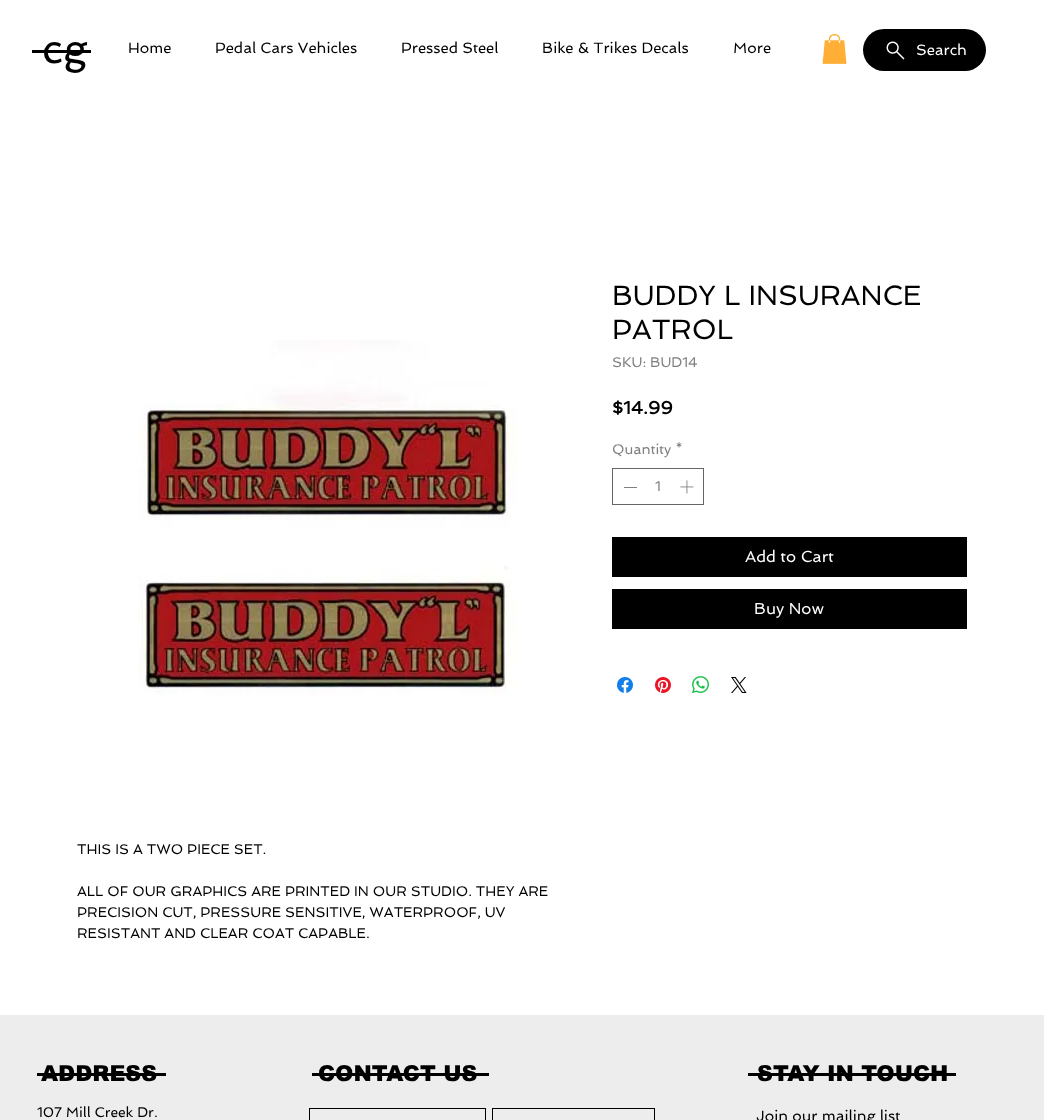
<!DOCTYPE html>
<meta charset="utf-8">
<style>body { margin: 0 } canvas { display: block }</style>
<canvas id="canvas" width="1044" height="1120"></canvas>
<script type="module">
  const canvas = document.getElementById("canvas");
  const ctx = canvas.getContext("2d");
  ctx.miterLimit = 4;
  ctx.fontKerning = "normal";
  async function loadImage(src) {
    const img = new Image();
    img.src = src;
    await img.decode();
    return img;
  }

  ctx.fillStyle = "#ffffff";
  ctx.fillRect(0, 0, 1044, 1120);
  ctx.font = "42px Spinnaker";
  ctx.fillStyle = "#000000";
  ctx.fillText("cg", 42, 63);
  ctx.font = "15px Spinnaker";
  ctx.fillText("Home", 128, 53);
  ctx.fillText("Pedal Cars Vehicles", 215, 53);
  ctx.fillText("Pressed Steel", 401, 53);
  ctx.fillText("Bike & Trikes Decals", 542, 53);
  ctx.fillText("More", 733, 53);
  ctx.drawImage(await loadImage("img1.png"), 822, 34, 25, 30);
  ctx.beginPath();
  ctx.roundRect(863, 29, 123, 42, 21);
  ctx.fill();
  ctx.drawImage(await loadImage("img2.png"), 886, 41, 19, 19);
  ctx.fillStyle = "#ffffff";
  ctx.fillText("Search", 916, 55);
  ctx.fillStyle = "#000000";
  ctx.fillRect(32, 50, 59, 3);
  ctx.font = "28px Spinnaker";
  ctx.fillText("BUDDY L INSURANCE", 612, 305);
  ctx.fillText("PATROL", 612, 339);
  ctx.font = "14px Spinnaker";
  ctx.fillStyle = "#808080";
  ctx.fillText("SKU: BUD14", 612, 367);
  ctx.font = "bold 18px Spinnaker";
  ctx.fillStyle = "#000000";
  ctx.fillText("$14.99", 612, 414);
  ctx.font = "14px Spinnaker";
  ctx.fillStyle = "#808080";
  ctx.fillText("Quantity *", 612, 454);
  ctx.strokeStyle = "#666666";
  ctx.strokeRect(612.5, 468.5, 91, 36);
  ctx.fillRect(624, 487, 13, 1);
  ctx.fillText("1", 655, 491);
  ctx.drawImage(await loadImage("img3.png"), 680, 480, 14, 14);
  ctx.fillStyle = "#000000";
  ctx.fillRect(612, 537, 355, 40);
  ctx.font = "16px Spinnaker";
  ctx.fillStyle = "#ffffff";
  ctx.fillText("Add to Cart", 745, 562);
  ctx.fillStyle = "#000000";
  ctx.fillRect(612, 589, 355, 40);
  ctx.fillStyle = "#ffffff";
  ctx.fillText("Buy Now", 754, 614);
  ctx.drawImage(await loadImage("img4.png"), 617, 677, 16, 16);
  ctx.drawImage(await loadImage("img5.png"), 655, 677, 16, 16);
  ctx.drawImage(await loadImage("img6.png"), 692, 676, 17, 17);
  ctx.drawImage(await loadImage("img7.png"), 731, 677, 16, 16);
  ctx.drawImage(await loadImage("img8.png"), 138, 340, 379, 356);
  ctx.font = "14px Spinnaker";
  ctx.fillStyle = "#000000";
  ctx.fillText("THIS IS A TWO PIECE SET.", 77, 854);
  ctx.fillText("ALL OF OUR GRAPHICS ARE PRINTED IN OUR STUDIO. THEY ARE", 77, 896);
  ctx.fillText("PRECISION CUT, PRESSURE SENSITIVE, WATERPROOF, UV", 77, 917);
  ctx.fillText("RESISTANT AND CLEAR COAT CAPABLE.", 77, 938);
  ctx.fillStyle = "#ededee";
  ctx.fillRect(0, 1015, 1044, 105);
  ctx.font = "900 22px arial";
  ctx.fillStyle = "#000000";
  ctx.fillText("ADDRESS", 41, 1081);
  ctx.fillText("CONTACT US", 318, 1081);
  ctx.fillText("STAY IN TOUCH", 757, 1081);
  ctx.fillRect(37, 1073, 129, 3);
  ctx.fillRect(312, 1073, 177, 3);
  ctx.fillRect(748, 1073, 208, 3);
  ctx.font = "14px Spinnaker";
  ctx.fillText("107 Mill Creek Dr.", 37, 1117);
  ctx.strokeStyle = "#000000";
  ctx.strokeRect(309.5, 1108.5, 176, 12);
  ctx.strokeRect(492.5, 1108.5, 162, 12);
  ctx.font = "15px Spinnaker";
  ctx.fillText("Join our mailing list", 756, 1121);
</script>
